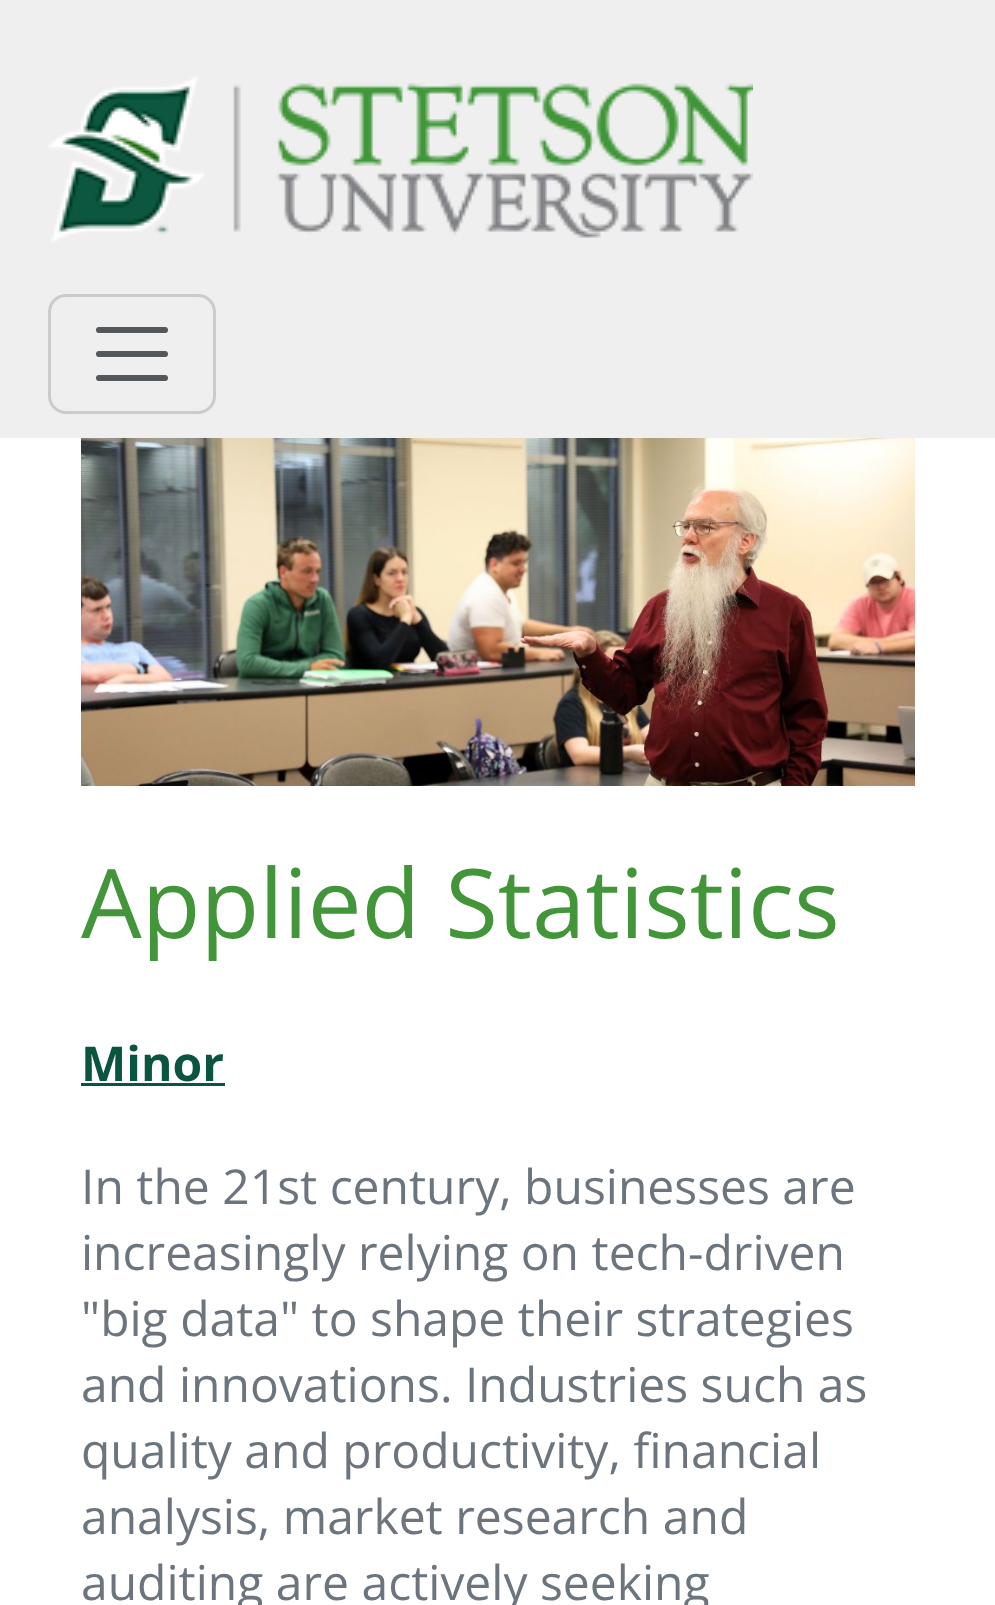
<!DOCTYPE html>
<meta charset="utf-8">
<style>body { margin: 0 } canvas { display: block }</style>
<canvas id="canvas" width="995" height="1605"></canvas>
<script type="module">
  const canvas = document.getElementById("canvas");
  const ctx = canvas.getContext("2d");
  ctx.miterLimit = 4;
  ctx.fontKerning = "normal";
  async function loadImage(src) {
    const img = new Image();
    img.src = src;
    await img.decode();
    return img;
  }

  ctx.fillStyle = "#ffffff";
  ctx.fillRect(0, 0, 995, 1605);
  ctx.fillStyle = "#efefef";
  ctx.fillRect(0, 0, 995, 438);
  ctx.drawImage(await loadImage("img1.png"), 48, 75, 705, 168);
  ctx.beginPath();
  ctx.roundRect(49.5, 295.5, 165, 117, 16.5);
  ctx.strokeStyle = "#cbcbcb";
  ctx.lineWidth = 3;
  ctx.stroke();
  ctx.beginPath();
  ctx.moveTo(99, 330);
  ctx.lineTo(165, 330);
  ctx.moveTo(99, 354);
  ctx.lineTo(165, 354);
  ctx.moveTo(99, 378);
  ctx.lineTo(165, 378);
  ctx.strokeStyle = "#55585b";
  ctx.lineWidth = 6;
  ctx.lineCap = "round";
  ctx.stroke();
  ctx.drawImage(await loadImage("img2.png"), 81, 438, 834, 348);
  ctx.font = "96px Open Sans";
  ctx.fillStyle = "#439539";
  ctx.fillText("Applied Statistics", 81, 938);
  ctx.font = "bold 48px Open Sans";
  ctx.fillStyle = "#095540";
  ctx.fillText("Minor", 81, 1081);
  ctx.fillRect(81, 1083, 144, 3);
  ctx.font = "48px Open Sans";
  ctx.fillStyle = "#6c757d";
  ctx.fillText("In the 21st century, businesses are", 81, 1204);
  ctx.fillText("increasingly relying on tech-driven", 81, 1270);
  ctx.fillText("\"big data\" to shape their strategies", 81, 1336);
  ctx.fillText("and innovations. Industries such as", 81, 1402);
  ctx.fillText("quality and productivity, financial", 81, 1468);
  ctx.fillText("analysis, market research and", 81, 1534);
  ctx.fillText("auditing are actively seeking", 81, 1600);
</script>
